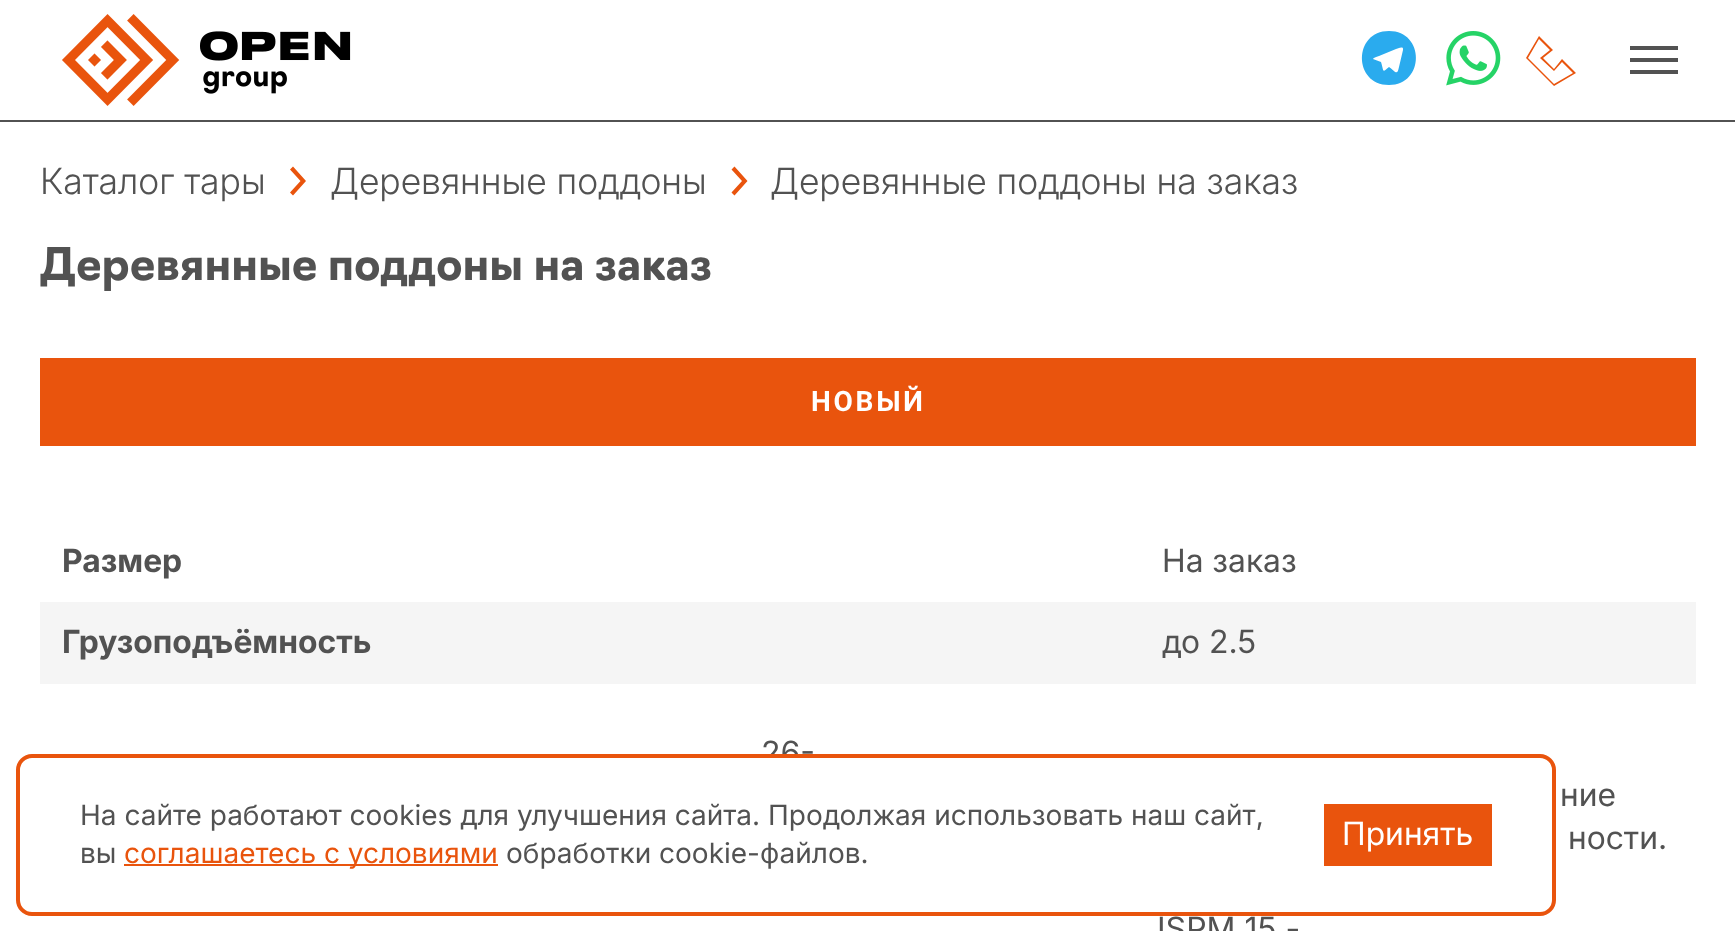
<!DOCTYPE html>
<meta charset="utf-8">
<style>body { margin: 0 } canvas { display: block }</style>
<canvas id="canvas" width="1735" height="931"></canvas>
<script type="module">
  const canvas = document.getElementById("canvas");
  const ctx = canvas.getContext("2d");
  ctx.miterLimit = 4;
  ctx.fontKerning = "normal";
  async function loadImage(src) {
    const img = new Image();
    img.src = src;
    await img.decode();
    return img;
  }

  ctx.fillStyle = "#ffffff";
  ctx.fillRect(0, 0, 1735, 931);
  ctx.fillStyle = "#525252";
  ctx.fillRect(0, 120, 1735, 2);
  ctx.drawImage(await loadImage("img1.png"), 62, 14, 289, 92);
  ctx.fillStyle = "#2aabee";
  ctx.beginPath();
  ctx.moveTo(1389, 31);
  ctx.bezierCurveTo(1353, 31, 1353, 85, 1389, 85);
  ctx.bezierCurveTo(1425, 85, 1425, 31, 1389, 31);
  ctx.closePath();
  ctx.moveTo(1403, 50);
  ctx.lineTo(1399, 67);
  ctx.bezierCurveTo(1397, 76, 1396, 72, 1389, 67);
  ctx.bezierCurveTo(1382, 73, 1384, 72, 1381, 62);
  ctx.lineTo(1373, 59);
  ctx.bezierCurveTo(1373, 58, 1376, 57, 1379, 56);
  ctx.lineTo(1396, 49);
  ctx.bezierCurveTo(1397, 49, 1404, 45, 1403, 50);
  ctx.closePath();
  ctx.fill();
  ctx.drawImage(await loadImage("img2.png"), 1446, 31, 55, 55);
  ctx.fillStyle = "#e9540d";
  ctx.beginPath();
  ctx.moveTo(1554, 86);
  ctx.lineTo(1526, 58);
  ctx.lineTo(1539, 36);
  ctx.lineTo(1553, 50);
  ctx.lineTo(1543, 58);
  ctx.lineTo(1554, 69);
  ctx.lineTo(1562, 59);
  ctx.lineTo(1576, 73);
  ctx.closePath();
  ctx.moveTo(1528, 58);
  ctx.lineTo(1554, 84);
  ctx.lineTo(1573, 73);
  ctx.lineTo(1562, 62);
  ctx.lineTo(1554, 71);
  ctx.lineTo(1540, 58);
  ctx.lineTo(1550, 50);
  ctx.lineTo(1539, 39);
  ctx.closePath();
  ctx.fill();
  ctx.fillStyle = "#525252";
  ctx.fillRect(1630, 46, 48, 4);
  ctx.fillRect(1630, 58, 48, 4);
  ctx.fillRect(1630, 70, 48, 4);
  ctx.font = "300 36px Inter";
  ctx.fillText("Каталог тары", 40, 194);
  ctx.fillStyle = "#e9540d";
  ctx.beginPath();
  ctx.moveTo(306, 181);
  ctx.lineTo(293, 195.5);
  ctx.lineTo(290, 192.5);
  ctx.lineTo(300.5, 181);
  ctx.lineTo(290, 169.5);
  ctx.lineTo(293, 166.5);
  ctx.closePath();
  ctx.fill();
  ctx.fillStyle = "#525252";
  ctx.fillText("Деревянные поддоны", 330, 194);
  ctx.fillStyle = "#e9540d";
  ctx.beginPath();
  ctx.moveTo(747.5, 181);
  ctx.lineTo(734.5, 195.5);
  ctx.lineTo(731.5, 192.5);
  ctx.lineTo(742, 181);
  ctx.lineTo(731.5, 169.5);
  ctx.lineTo(734.5, 166.5);
  ctx.closePath();
  ctx.fill();
  ctx.fillStyle = "#525252";
  ctx.fillText("Деревянные поддоны на заказ", 770, 194);
  ctx.font = "bold 44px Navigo";
  ctx.fillText("Деревянные поддоны на заказ", 40, 280);
  ctx.fillStyle = "#e9540d";
  ctx.fillRect(40, 358, 1656, 88);
  ctx.letterSpacing = "2.75px";
  ctx.font = "bold 28px Roboto";
  ctx.fillStyle = "#ffffff";
  ctx.fillText("НОВЫЙ", 811, 411);
  ctx.letterSpacing = "0px";
  ctx.font = "bold 32px Inter";
  ctx.fillStyle = "#525252";
  ctx.fillText("Размер", 62, 572);
  ctx.font = "32px Inter";
  ctx.fillText("На заказ", 1162, 572);
  ctx.fillStyle = "#f5f5f5";
  ctx.fillRect(40, 602, 1656, 82);
  ctx.font = "bold 32px Inter";
  ctx.fillStyle = "#525252";
  ctx.fillText("Грузоподъёмность", 62, 653);
  ctx.font = "32px Inter";
  ctx.fillText("до", 1162, 653);
  ctx.font = "32px 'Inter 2'";
  ctx.fillText("2.5", 1209, 653);
  ctx.fillText("26-", 761, 764);
  ctx.font = "32px Inter";
  ctx.fillText("ние", 1560, 806);
  ctx.fillText("ности", 1568, 849);
  ctx.font = "32px 'Inter 2'";
  ctx.fillText(".", 1658, 849);
  ctx.fillText("ISPM 15 -", 1157, 940);
  ctx.fillStyle = "#ffffff";
  ctx.beginPath();
  ctx.roundRect(18, 756, 1536, 158, 14);
  ctx.fill();
  ctx.strokeStyle = "#e9540d";
  ctx.lineWidth = 4;
  ctx.stroke();
  ctx.font = "28px 'Inter 2'";
  ctx.fillStyle = "#525252";
  ctx.fillText("На сайте работают cookies для улучшения сайта. Продолжая использовать наш сайт,", 80, 825);
  ctx.fillText("вы", 80, 863);
  ctx.fillStyle = "#e9540d";
  ctx.fillRect(124, 864, 374, 2);
  ctx.fillText("соглашаетесь с условиями", 124, 863);
  ctx.fillStyle = "#525252";
  ctx.fillText("обработки cookie-файлов.", 506, 863);
  ctx.fillStyle = "#e9540d";
  ctx.fillRect(1324, 804, 168, 62);
  ctx.font = "32px Inter";
  ctx.fillStyle = "#ffffff";
  ctx.fillText("Принять", 1342, 845);
</script>
